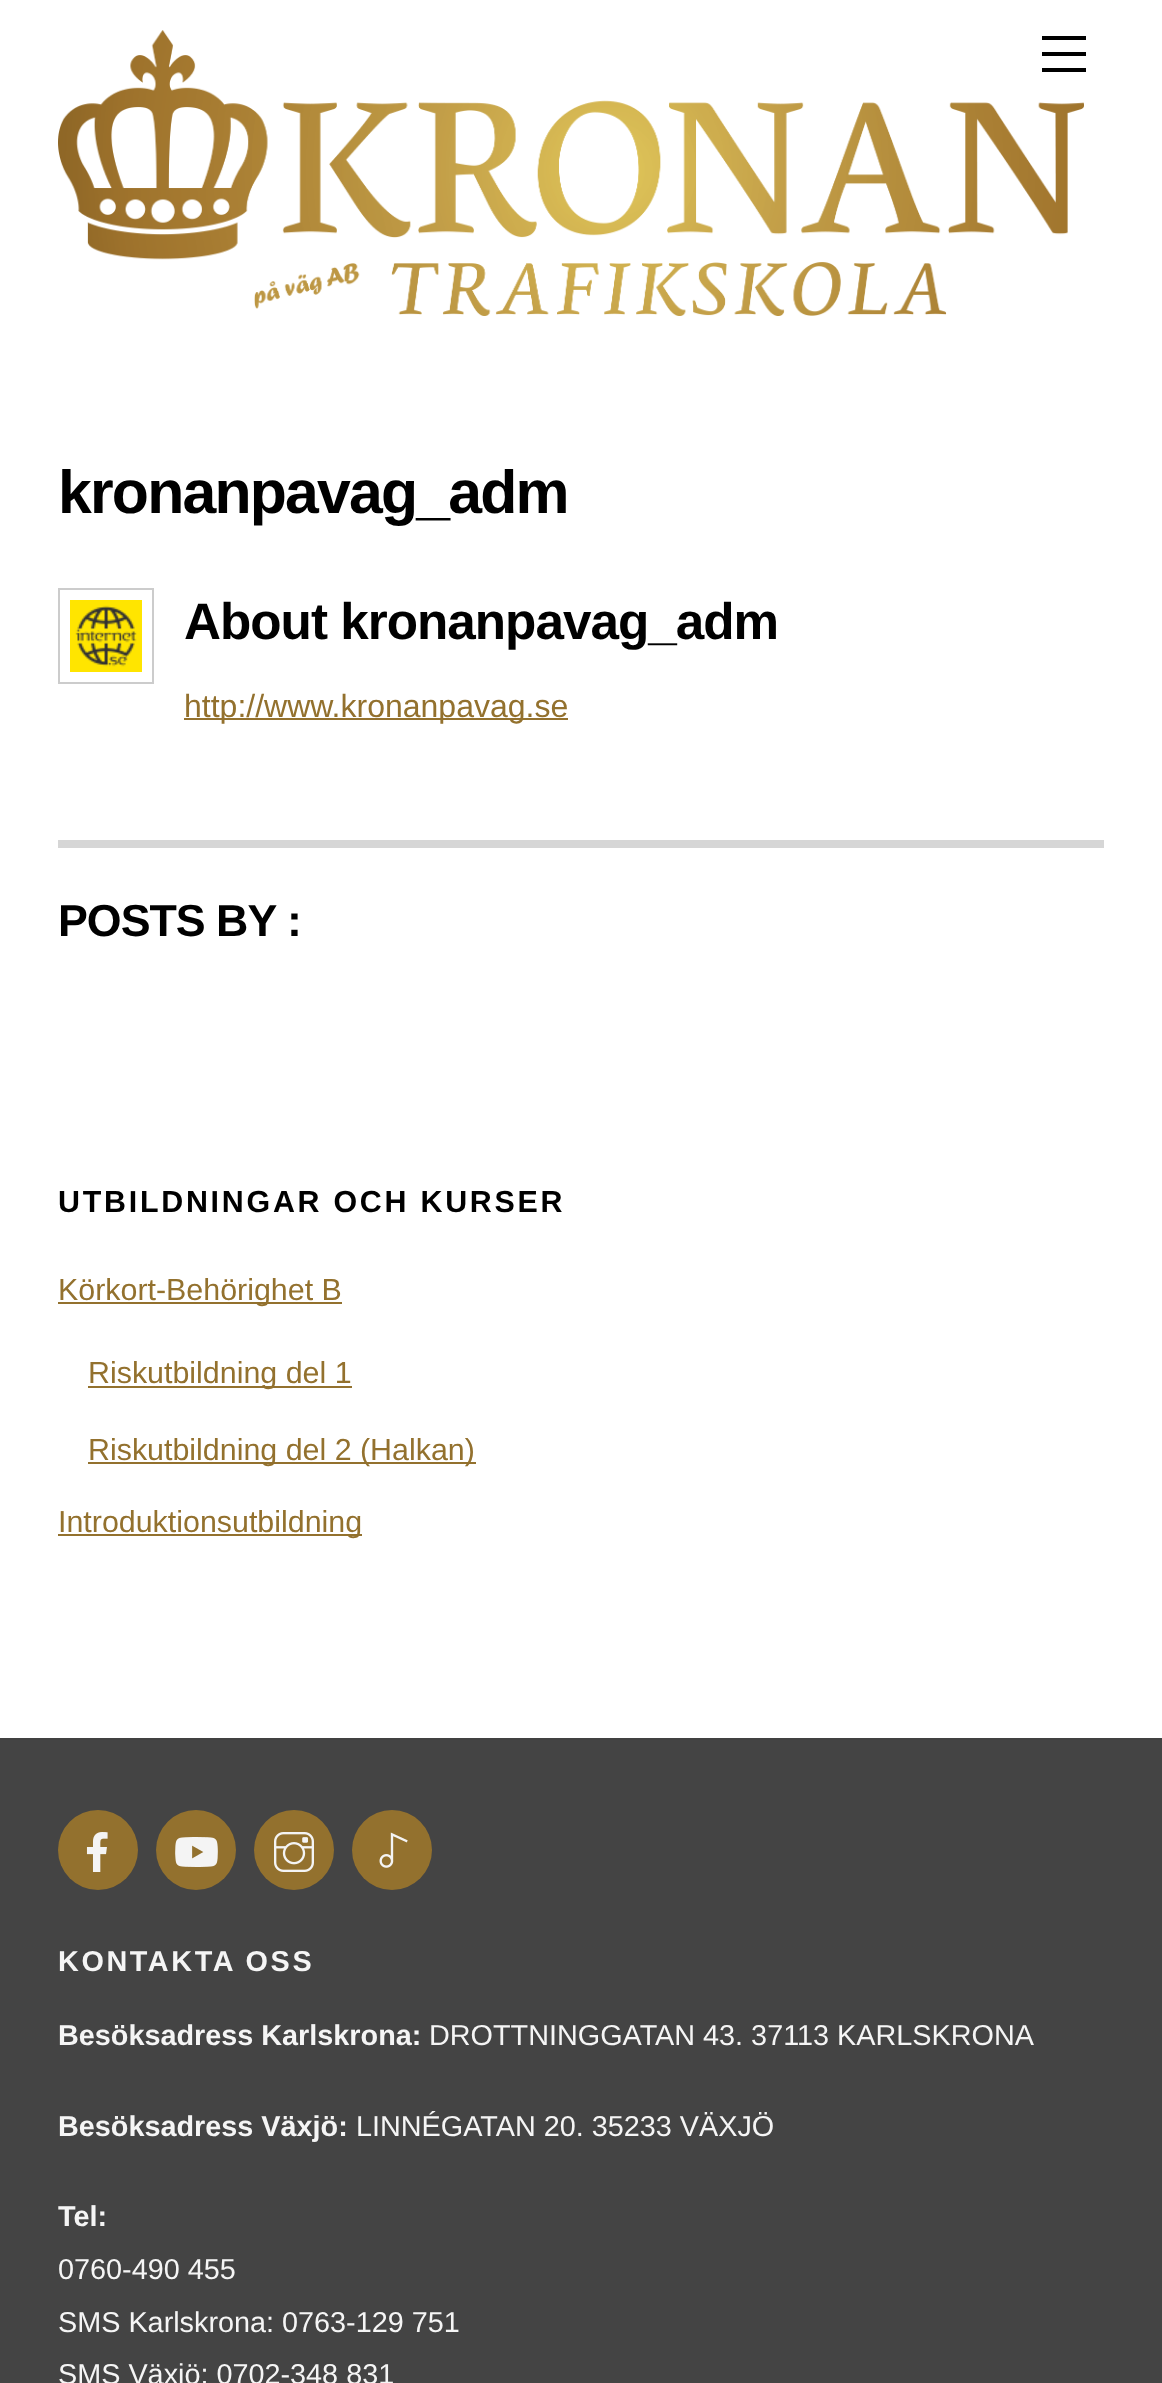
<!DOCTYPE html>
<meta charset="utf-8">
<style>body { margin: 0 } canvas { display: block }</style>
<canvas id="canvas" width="1162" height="2383"></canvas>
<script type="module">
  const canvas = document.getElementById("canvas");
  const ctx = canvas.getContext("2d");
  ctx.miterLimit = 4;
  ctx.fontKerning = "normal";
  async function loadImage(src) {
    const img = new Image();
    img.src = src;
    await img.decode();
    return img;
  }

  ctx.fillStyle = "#ffffff";
  ctx.fillRect(0, 0, 1162, 2383);
  ctx.drawImage(await loadImage("img1.png"), 58, 30, 1026, 286);
  ctx.fillStyle = "#000000";
  ctx.fillRect(1042, 68, 44, 4);
  ctx.fillRect(1042, 36, 44, 4);
  ctx.fillRect(1042, 52, 44, 4);
  ctx.letterSpacing = "-1.8px";
  ctx.font = "bold 60.75px Liberation Sans";
  ctx.fillText("kronanpavag_adm", 58, 513);
  ctx.strokeStyle = "#cccccc";
  ctx.lineWidth = 2;
  ctx.strokeRect(59, 589, 94, 94);
  ctx.drawImage(await loadImage("img2.png"), 70, 600, 72, 72);
  ctx.letterSpacing = "-1px";
  ctx.font = "bold 51.25px Liberation Sans";
  ctx.fillText("About kronanpavag_adm", 184, 639);
  ctx.fillStyle = "#93712e";
  ctx.fillRect(184, 718, 384, 2);
  ctx.letterSpacing = "0px";
  ctx.font = "32px Liberation Sans";
  ctx.fillText("http://www.kronanpavag.se", 184, 717);
  ctx.fillStyle = "#d6d6d6";
  ctx.fillRect(58, 840, 1046, 8);
  ctx.letterSpacing = "-1px";
  ctx.font = "bold 44.75px Liberation Sans";
  ctx.fillStyle = "#000000";
  ctx.fillText("POSTS BY :", 58, 936);
  ctx.letterSpacing = "2.75px";
  ctx.font = "bold 30.4px Liberation Sans";
  ctx.fillText("UTBILDNINGAR OCH KURSER", 58, 1212);
  ctx.fillStyle = "#93712e";
  ctx.fillRect(58, 1302, 284, 2);
  ctx.letterSpacing = "0px";
  ctx.font = "30.4px Liberation Sans";
  ctx.fillText("Körkort-Behörighet B", 58, 1300);
  ctx.fillRect(88, 1386, 264, 2);
  ctx.fillText("Riskutbildning del 1", 88, 1383);
  ctx.fillRect(88, 1462, 388, 2);
  ctx.fillText("Riskutbildning del 2 (Halkan)", 88, 1460);
  ctx.fillRect(58, 1534, 304, 2);
  ctx.fillText("Introduktionsutbildning", 58, 1532);
  ctx.fillStyle = "#444444";
  ctx.fillRect(0, 1740, 1162, 643);
  ctx.fillStyle = "#414141";
  ctx.fillRect(0, 1738, 1162, 2);
  ctx.fillStyle = "#93712e";
  ctx.beginPath();
  ctx.arc(98, 1850, 40, 0, Math.PI * 2);
  ctx.fill();
  ctx.drawImage(await loadImage("img3.png"), 86, 1832, 22, 40);
  ctx.beginPath();
  ctx.arc(196, 1850, 40, 0, Math.PI * 2);
  ctx.fill();
  ctx.drawImage(await loadImage("img4.png"), 175, 1837, 43, 30);
  ctx.beginPath();
  ctx.arc(294, 1850, 40, 0, Math.PI * 2);
  ctx.fill();
  ctx.drawImage(await loadImage("img5.png"), 274, 1832, 40, 40);
  ctx.beginPath();
  ctx.arc(392, 1850, 40, 0, Math.PI * 2);
  ctx.fill();
  ctx.drawImage(await loadImage("img6.png"), 379, 1832, 29, 36);
  ctx.letterSpacing = "2.6px";
  ctx.font = "bold 28.8px Liberation Sans";
  ctx.fillStyle = "#f5f5f5";
  ctx.fillText("KONTAKTA OSS", 58, 1971);
  ctx.letterSpacing = "0px";
  ctx.fillText("Besöksadress Karlskrona:", 58, 2045);
  ctx.font = "28.8px Liberation Sans";
  ctx.fillText("DROTTNINGGATAN 43. 37113 KARLSKRONA", 429, 2045);
  ctx.font = "bold 28.8px Liberation Sans";
  ctx.fillText("Besöksadress Växjö:", 58, 2136);
  ctx.font = "28.8px Liberation Sans";
  ctx.fillText("LINNÉGATAN 20. 35233 VÄXJÖ", 356, 2136);
  ctx.font = "bold 28.8px Liberation Sans";
  ctx.fillText("Tel:", 58, 2226);
  ctx.font = "28.8px Liberation Sans";
  ctx.fillText("0760-490 455", 58, 2279);
  ctx.fillText("SMS Karlskrona: 0763-129 751", 58, 2332);
  ctx.fillText("SMS Växjö: 0702-348 831", 58, 2384);
</script>
